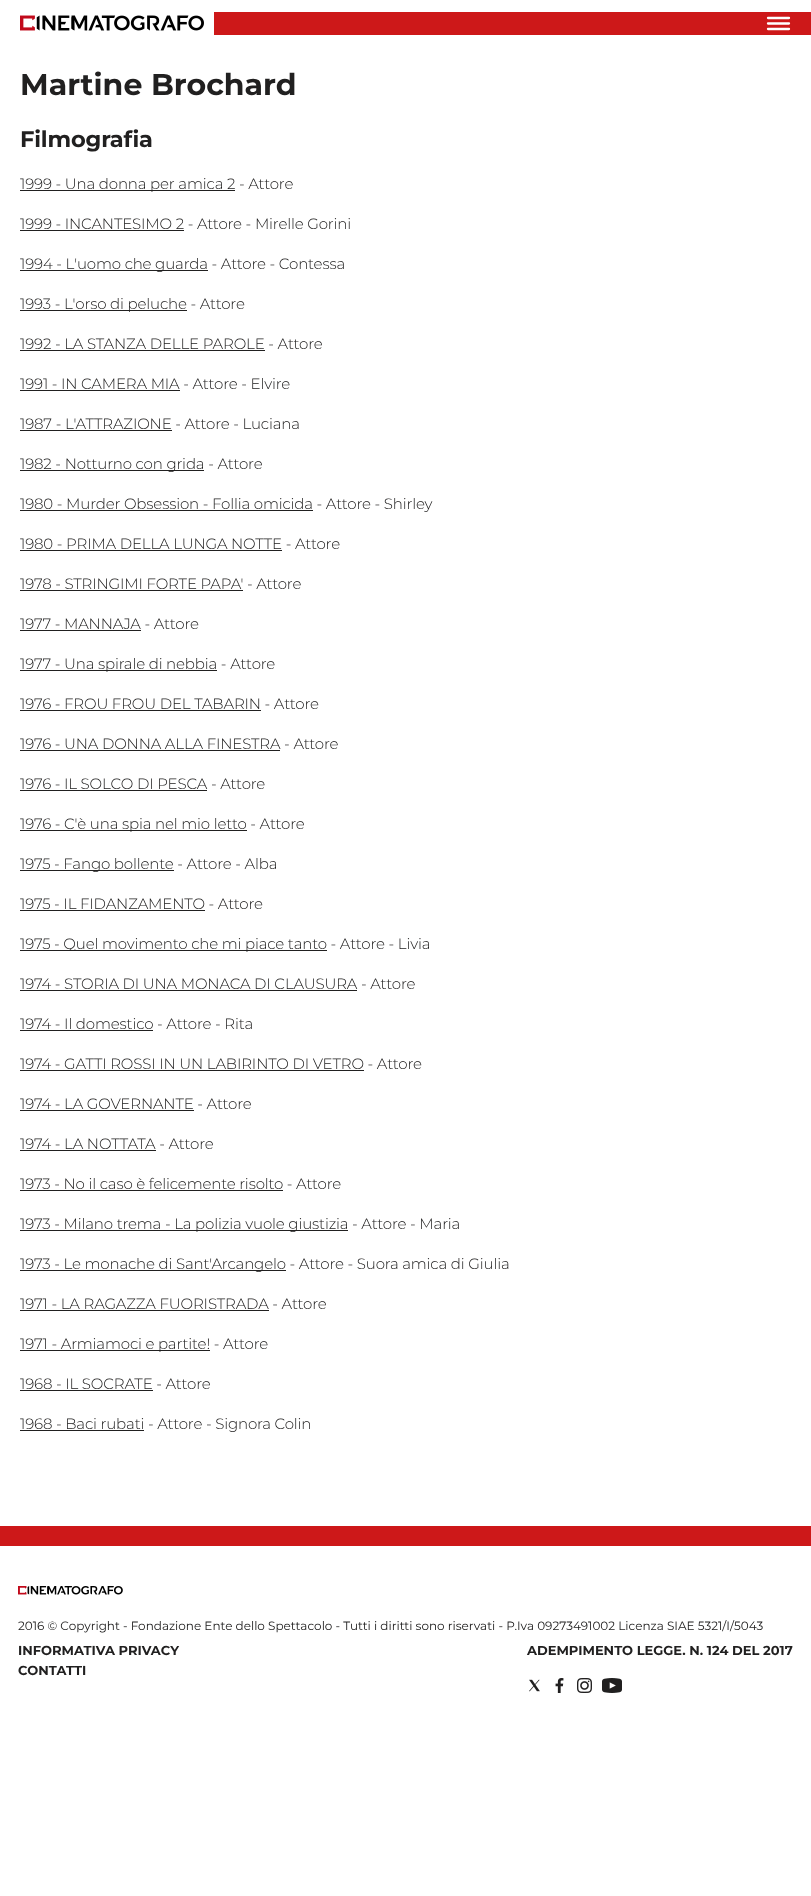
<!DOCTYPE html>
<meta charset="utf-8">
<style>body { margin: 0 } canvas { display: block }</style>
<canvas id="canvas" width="811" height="1896"></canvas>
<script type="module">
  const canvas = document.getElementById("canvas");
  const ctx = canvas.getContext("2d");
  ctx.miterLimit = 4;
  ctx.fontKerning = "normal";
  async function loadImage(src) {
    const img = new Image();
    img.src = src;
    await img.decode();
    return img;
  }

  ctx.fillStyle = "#ffffff";
  ctx.fillRect(0, 0, 811, 1896);
  ctx.drawImage(await loadImage("img1.png"), 20, 15, 184, 16);
  ctx.fillStyle = "#cd1819";
  ctx.fillRect(214, 12, 597, 23);
  ctx.beginPath();
  ctx.moveTo(768, 18);
  ctx.lineTo(789, 18);
  ctx.moveTo(768, 23.5);
  ctx.lineTo(789, 23.5);
  ctx.moveTo(768, 29);
  ctx.lineTo(789, 29);
  ctx.strokeStyle = "#ffffff";
  ctx.lineWidth = 2.3;
  ctx.lineCap = "round";
  ctx.stroke();
  ctx.font = "bold 30px Montserrat";
  ctx.fillStyle = "#212020";
  ctx.fillText("Martine Brochard", 20, 95);
  ctx.letterSpacing = "-0.15px";
  ctx.font = "bold 22.5px Montserrat";
  ctx.fillText("Filmografia", 20, 147);
  ctx.fillRect(20, 190, 215, 1);
  ctx.font = "300 15px Montserrat";
  ctx.fillText("1999 - Una donna per amica 2 - Attore", 20, 189);
  ctx.fillText("1999 - INCANTESIMO 2 - Attore - Mirelle Gorini", 20, 229);
  ctx.fillRect(20, 230, 164, 1);
  ctx.fillRect(20, 270, 188, 1);
  ctx.fillText("1994 - L'uomo che guarda - Attore - Contessa", 20, 269);
  ctx.fillRect(20, 310, 167, 1);
  ctx.fillText("1993 - L'orso di peluche - Attore", 20, 309);
  ctx.fillText("1992 - LA STANZA DELLE PAROLE - Attore", 20, 349);
  ctx.fillRect(20, 350, 245, 1);
  ctx.fillText("1991 - IN CAMERA MIA - Attore - Elvire", 20, 389);
  ctx.fillRect(20, 390, 160, 1);
  ctx.fillText("1987 - L'ATTRAZIONE - Attore - Luciana", 20, 429);
  ctx.fillRect(20, 430, 152, 1);
  ctx.fillRect(20, 470, 184, 1);
  ctx.fillText("1982 - Notturno con grida - Attore", 20, 469);
  ctx.fillRect(20, 510, 293, 1);
  ctx.fillText("1980 - Murder Obsession - Follia omicida - Attore - Shirley", 20, 509);
  ctx.fillText("1980 - PRIMA DELLA LUNGA NOTTE - Attore", 20, 549);
  ctx.fillRect(20, 550, 262, 1);
  ctx.fillText("1978 - STRINGIMI FORTE PAPA' - Attore", 20, 589);
  ctx.fillRect(20, 590, 223, 1);
  ctx.fillText("1977 - MANNAJA - Attore", 20, 629);
  ctx.fillRect(20, 630, 121, 1);
  ctx.fillRect(20, 670, 197, 1);
  ctx.fillText("1977 - Una spirale di nebbia - Attore", 20, 669);
  ctx.fillText("1976 - FROU FROU DEL TABARIN - Attore", 20, 709);
  ctx.fillRect(20, 710, 241, 1);
  ctx.fillText("1976 - UNA DONNA ALLA FINESTRA - Attore", 20, 749);
  ctx.fillRect(20, 750, 260, 1);
  ctx.fillText("1976 - IL SOLCO DI PESCA - Attore", 20, 789);
  ctx.fillRect(20, 790, 187, 1);
  ctx.fillRect(20, 830, 227, 1);
  ctx.fillText("1976 - C'è una spia nel mio letto - Attore", 20, 829);
  ctx.fillRect(20, 870, 154, 1);
  ctx.fillText("1975 - Fango bollente - Attore - Alba", 20, 869);
  ctx.fillText("1975 - IL FIDANZAMENTO - Attore", 20, 909);
  ctx.fillRect(20, 910, 185, 1);
  ctx.fillRect(20, 950, 307, 1);
  ctx.fillText("1975 - Quel movimento che mi piace tanto - Attore - Livia", 20, 949);
  ctx.fillText("1974 - STORIA DI UNA MONACA DI CLAUSURA - Attore", 20, 989);
  ctx.fillRect(20, 990, 337, 1);
  ctx.fillText("1974 - Il domestico - Attore - Rita", 20, 1029);
  ctx.fillRect(20, 1030, 133, 1);
  ctx.fillText("1974 - GATTI ROSSI IN UN LABIRINTO DI VETRO - Attore", 20, 1069);
  ctx.fillRect(20, 1070, 344, 1);
  ctx.fillText("1974 - LA GOVERNANTE - Attore", 20, 1109);
  ctx.fillRect(20, 1110, 174, 1);
  ctx.fillText("1974 - LA NOTTATA - Attore", 20, 1149);
  ctx.fillRect(20, 1150, 136, 1);
  ctx.fillText("1973 - No il caso è felicemente risolto - Attore", 20, 1189);
  ctx.fillRect(20, 1190, 263, 1);
  ctx.fillRect(20, 1230, 328, 1);
  ctx.fillText("1973 - Milano trema - La polizia vuole giustizia - Attore - Maria", 20, 1229);
  ctx.fillRect(20, 1270, 266, 1);
  ctx.fillText("1973 - Le monache di Sant'Arcangelo - Attore - Suora amica di Giulia", 20, 1269);
  ctx.fillText("1971 - LA RAGAZZA FUORISTRADA - Attore", 20, 1309);
  ctx.fillRect(20, 1310, 249, 1);
  ctx.fillRect(20, 1350, 190, 1);
  ctx.fillText("1971 - Armiamoci e partite! - Attore", 20, 1349);
  ctx.fillText("1968 - IL SOCRATE - Attore", 20, 1389);
  ctx.fillRect(20, 1390, 133, 1);
  ctx.fillRect(20, 1430, 124, 1);
  ctx.fillText("1968 - Baci rubati - Attore - Signora Colin", 20, 1429);
  ctx.fillStyle = "#cd1819";
  ctx.fillRect(0, 1526, 811, 20);
  ctx.drawImage(await loadImage("img2.png"), 18, 1586, 105, 9);
  ctx.letterSpacing = "0px";
  ctx.font = "12px Montserrat";
  ctx.fillStyle = "#212020";
  ctx.fillText("2016 © Copyright - Fondazione Ente dello Spettacolo - Tutti i diritti sono riservati - P.Iva 09273491002 Licenza SIAE 5321/I/5043", 18, 1630);
  ctx.font = "bold 13px Montserrat";
  ctx.fillText("INFORMATIVA PRIVACY", 18, 1655);
  ctx.fillText("CONTATTI", 18, 1675);
  ctx.fillText("ADEMPIMENTO LEGGE. N. 124 DEL 2017", 527, 1655);
  ctx.drawImage(await loadImage("img3.png"), 529, 1679, 11, 13);
  ctx.drawImage(await loadImage("img4.png"), 555, 1678, 9, 15);
  ctx.drawImage(await loadImage("img5.png"), 577, 1678, 15, 15);
  ctx.drawImage(await loadImage("img6.png"), 602, 1678, 20, 15);
</script>
